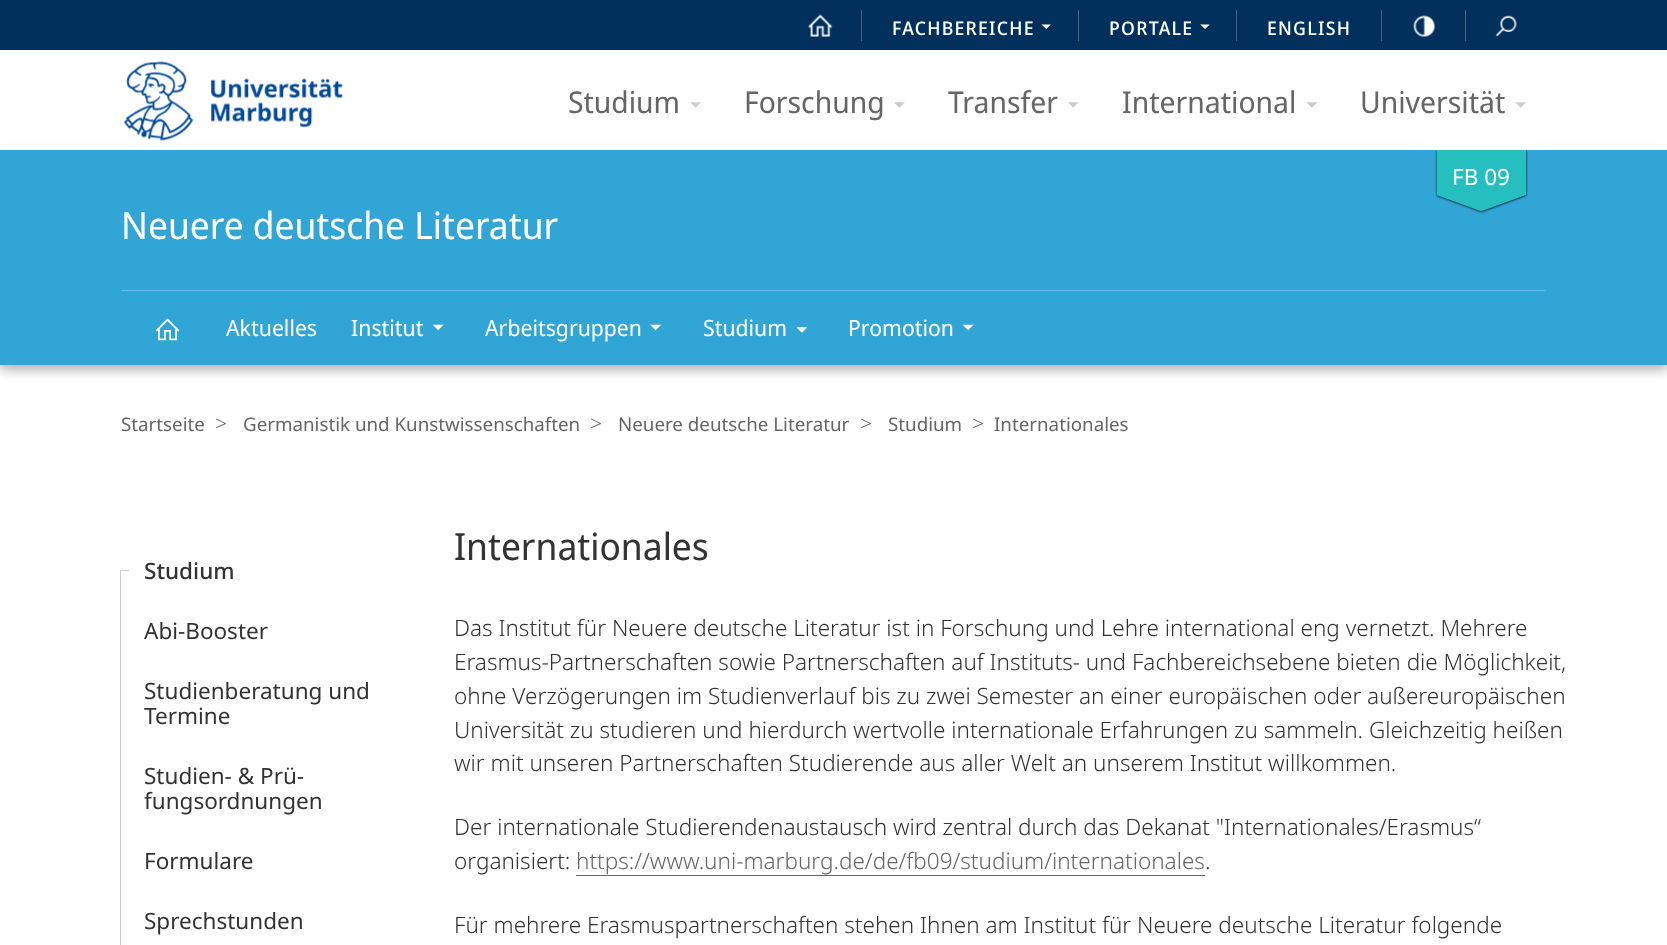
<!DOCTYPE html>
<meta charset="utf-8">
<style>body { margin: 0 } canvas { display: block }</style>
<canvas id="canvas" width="1667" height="945"></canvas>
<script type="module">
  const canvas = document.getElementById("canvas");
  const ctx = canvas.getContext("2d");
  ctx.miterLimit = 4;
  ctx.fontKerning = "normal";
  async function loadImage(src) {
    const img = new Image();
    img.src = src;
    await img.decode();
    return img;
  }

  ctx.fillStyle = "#ffffff";
  ctx.fillRect(0, 0, 1667, 945);
  ctx.fillStyle = "#00305b";
  ctx.fillRect(0, 0, 1667, 50);
  ctx.drawImage(await loadImage("img1.png"), 808, 14, 25, 23);
  ctx.fillStyle = "#406484";
  ctx.fillRect(861, 10, 1, 31);
  ctx.letterSpacing = "1.25px";
  ctx.font = "500 18.75px Noto Sans Display";
  ctx.fillStyle = "#ffffff";
  ctx.fillText("FACHBEREICHE", 892, 35);
  ctx.drawImage(await loadImage("img2.png"), 1041, 24, 10, 5);
  ctx.fillStyle = "#406484";
  ctx.fillRect(1078, 10, 1, 31);
  ctx.fillStyle = "#ffffff";
  ctx.fillText("PORTALE", 1109, 35);
  ctx.drawImage(await loadImage("img3.png"), 1200, 24, 10, 5);
  ctx.fillStyle = "#406484";
  ctx.fillRect(1236, 10, 1, 31);
  ctx.fillStyle = "#ffffff";
  ctx.fillText("ENGLISH", 1267, 35);
  ctx.fillStyle = "#406484";
  ctx.fillRect(1381, 10, 1, 31);
  ctx.drawImage(await loadImage("img4.png"), 1413, 15, 22, 22);
  ctx.fillRect(1465, 10, 1, 31);
  ctx.drawImage(await loadImage("img5.png"), 1495, 15, 22, 22);
  ctx.fillStyle = "rgba(0, 0, 0, 0.3)";
  ctx.filter = "blur(6px)";
  ctx.beginPath();
  ctx.rect(0, 155, 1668, 215);
  ctx.fill();
  ctx.filter = "none";
  ctx.fillStyle = "#ffffff";
  ctx.fillRect(0, 144, 1667, 6);
  ctx.drawImage(await loadImage("img6.png"), 124, 61, 219, 80);
  ctx.letterSpacing = "0px";
  ctx.font = "30px Noto Sans Display";
  ctx.fillStyle = "#666666";
  ctx.fillText("Studium", 568, 113);
  ctx.drawImage(await loadImage("img7.png"), 690, 102, 11, 6);
  ctx.fillText("Forschung", 744, 113);
  ctx.drawImage(await loadImage("img8.png"), 894, 102, 11, 6);
  ctx.fillText("Transfer", 948, 113);
  ctx.drawImage(await loadImage("img9.png"), 1068, 102, 11, 6);
  ctx.fillText("International", 1122, 113);
  ctx.drawImage(await loadImage("img10.png"), 1306, 102, 11, 6);
  ctx.fillText("Universität", 1360, 113);
  ctx.drawImage(await loadImage("img11.png"), 1515, 102, 11, 6);
  ctx.fillStyle = "#31a5d6";
  ctx.fillRect(0, 150, 1667, 215);
  ctx.drawImage(await loadImage("img12.png"), 1435, 150, 93, 64);
  ctx.drawImage(await loadImage("img13.png"), 1436, 150, 90, 62);
  ctx.font = "22.5px Noto Sans";
  ctx.fillStyle = "#ffffff";
  ctx.fillText("FB 09", 1452, 185);
  ctx.font = "37.5px Noto Sans Display";
  ctx.fillText("Neuere deutsche Literatur", 121, 239);
  ctx.fillStyle = "#65bce0";
  ctx.fillRect(121, 290, 1425, 1);
  ctx.drawImage(await loadImage("img14.png"), 155, 318, 25, 23);
  ctx.font = "22.5px Noto Sans Display";
  ctx.fillStyle = "#ffffff";
  ctx.fillText("Aktuelles", 226, 336);
  ctx.fillText("Institut", 351, 336);
  ctx.drawImage(await loadImage("img15.png"), 432, 324, 12, 7);
  ctx.fillText("Arbeitsgruppen", 485, 336);
  ctx.drawImage(await loadImage("img16.png"), 650, 324, 11, 7);
  ctx.fillText("Studium", 703, 336);
  ctx.drawImage(await loadImage("img17.png"), 796, 327, 12, 6);
  ctx.fillText("Promotion", 848, 336);
  ctx.drawImage(await loadImage("img15.png"), 962, 324, 12, 7);
  ctx.font = "18.75px Noto Sans";
  ctx.fillStyle = "#666666";
  ctx.fillText("Startseite", 121, 431);
  ctx.font = "300 21px Noto Sans";
  ctx.fillText(">", 215, 431);
  ctx.font = "18.75px Noto Sans";
  ctx.fillText("Germanistik und Kunstwissenschaften", 243, 431);
  ctx.font = "300 21px Noto Sans";
  ctx.fillText(">", 590, 431);
  ctx.font = "18.75px Noto Sans";
  ctx.fillText("Neuere deutsche Literatur", 618, 431);
  ctx.font = "300 21px Noto Sans";
  ctx.fillText(">", 860, 431);
  ctx.font = "18.75px Noto Sans";
  ctx.fillText("Studium", 888, 431);
  ctx.font = "300 21px Noto Sans";
  ctx.fillText(">", 972, 431);
  ctx.font = "18.75px Noto Sans";
  ctx.fillText("Internationales", 994, 431);
  ctx.fillStyle = "#cccccc";
  ctx.fillRect(120, 571, 1, 374);
  ctx.fillRect(120, 570, 9, 1);
  ctx.font = "500 22.5px Noto Sans";
  ctx.fillStyle = "#333333";
  ctx.fillText("Studium", 144, 579);
  ctx.font = "22.5px Noto Sans";
  ctx.fillText("Abi-Booster", 144, 639);
  ctx.fillText("Studienberatung und", 144, 699);
  ctx.fillText("Termine", 144, 724);
  ctx.fillText("Studien- & Prü-", 144, 784);
  ctx.fillText("fungsordnungen", 144, 809);
  ctx.fillText("Formulare", 144, 869);
  ctx.fillText("Sprechstunden", 144, 929);
  ctx.font = "37.5px Noto Sans Display";
  ctx.fillText("Internationales", 454, 560);
  ctx.font = "300 22.5px Noto Sans";
  ctx.fillText("Das Institut für Neuere deutsche Literatur ist in Forschung und Lehre international eng vernetzt. Mehrere", 454, 636);
  ctx.fillText("Erasmus-Partnerschaften sowie Partnerschaften auf Instituts- und Fachbereichsebene bieten die Möglichkeit,", 454, 670);
  ctx.fillText("ohne Verzögerungen im Studienverlauf bis zu zwei Semester an einer europäischen oder außereuropäischen", 454, 704);
  ctx.fillText("Universität zu studieren und hierdurch wertvolle internationale Erfahrungen zu sammeln. Gleichzeitig heißen", 454, 738);
  ctx.fillText("wir mit unseren Partnerschaften Studierende aus aller Welt an unserem Institut willkommen.", 454, 771);
  ctx.fillText("Der internationale Studierendenaustausch wird zentral durch das Dekanat \"Internationales/Erasmus“", 454, 835);
  ctx.fillText("organisiert:", 454, 869);
  ctx.fillStyle = "#666666";
  ctx.fillText("https://www.uni-marburg.de/de/fb09/studium/internationales", 576, 869);
  ctx.fillRect(576, 875, 629, 1);
  ctx.fillStyle = "#333333";
  ctx.fillText(".", 1205, 869);
  ctx.fillText("Für mehrere Erasmuspartnerschaften stehen Ihnen am Institut für Neuere deutsche Literatur folgende", 454, 933);
</script>
